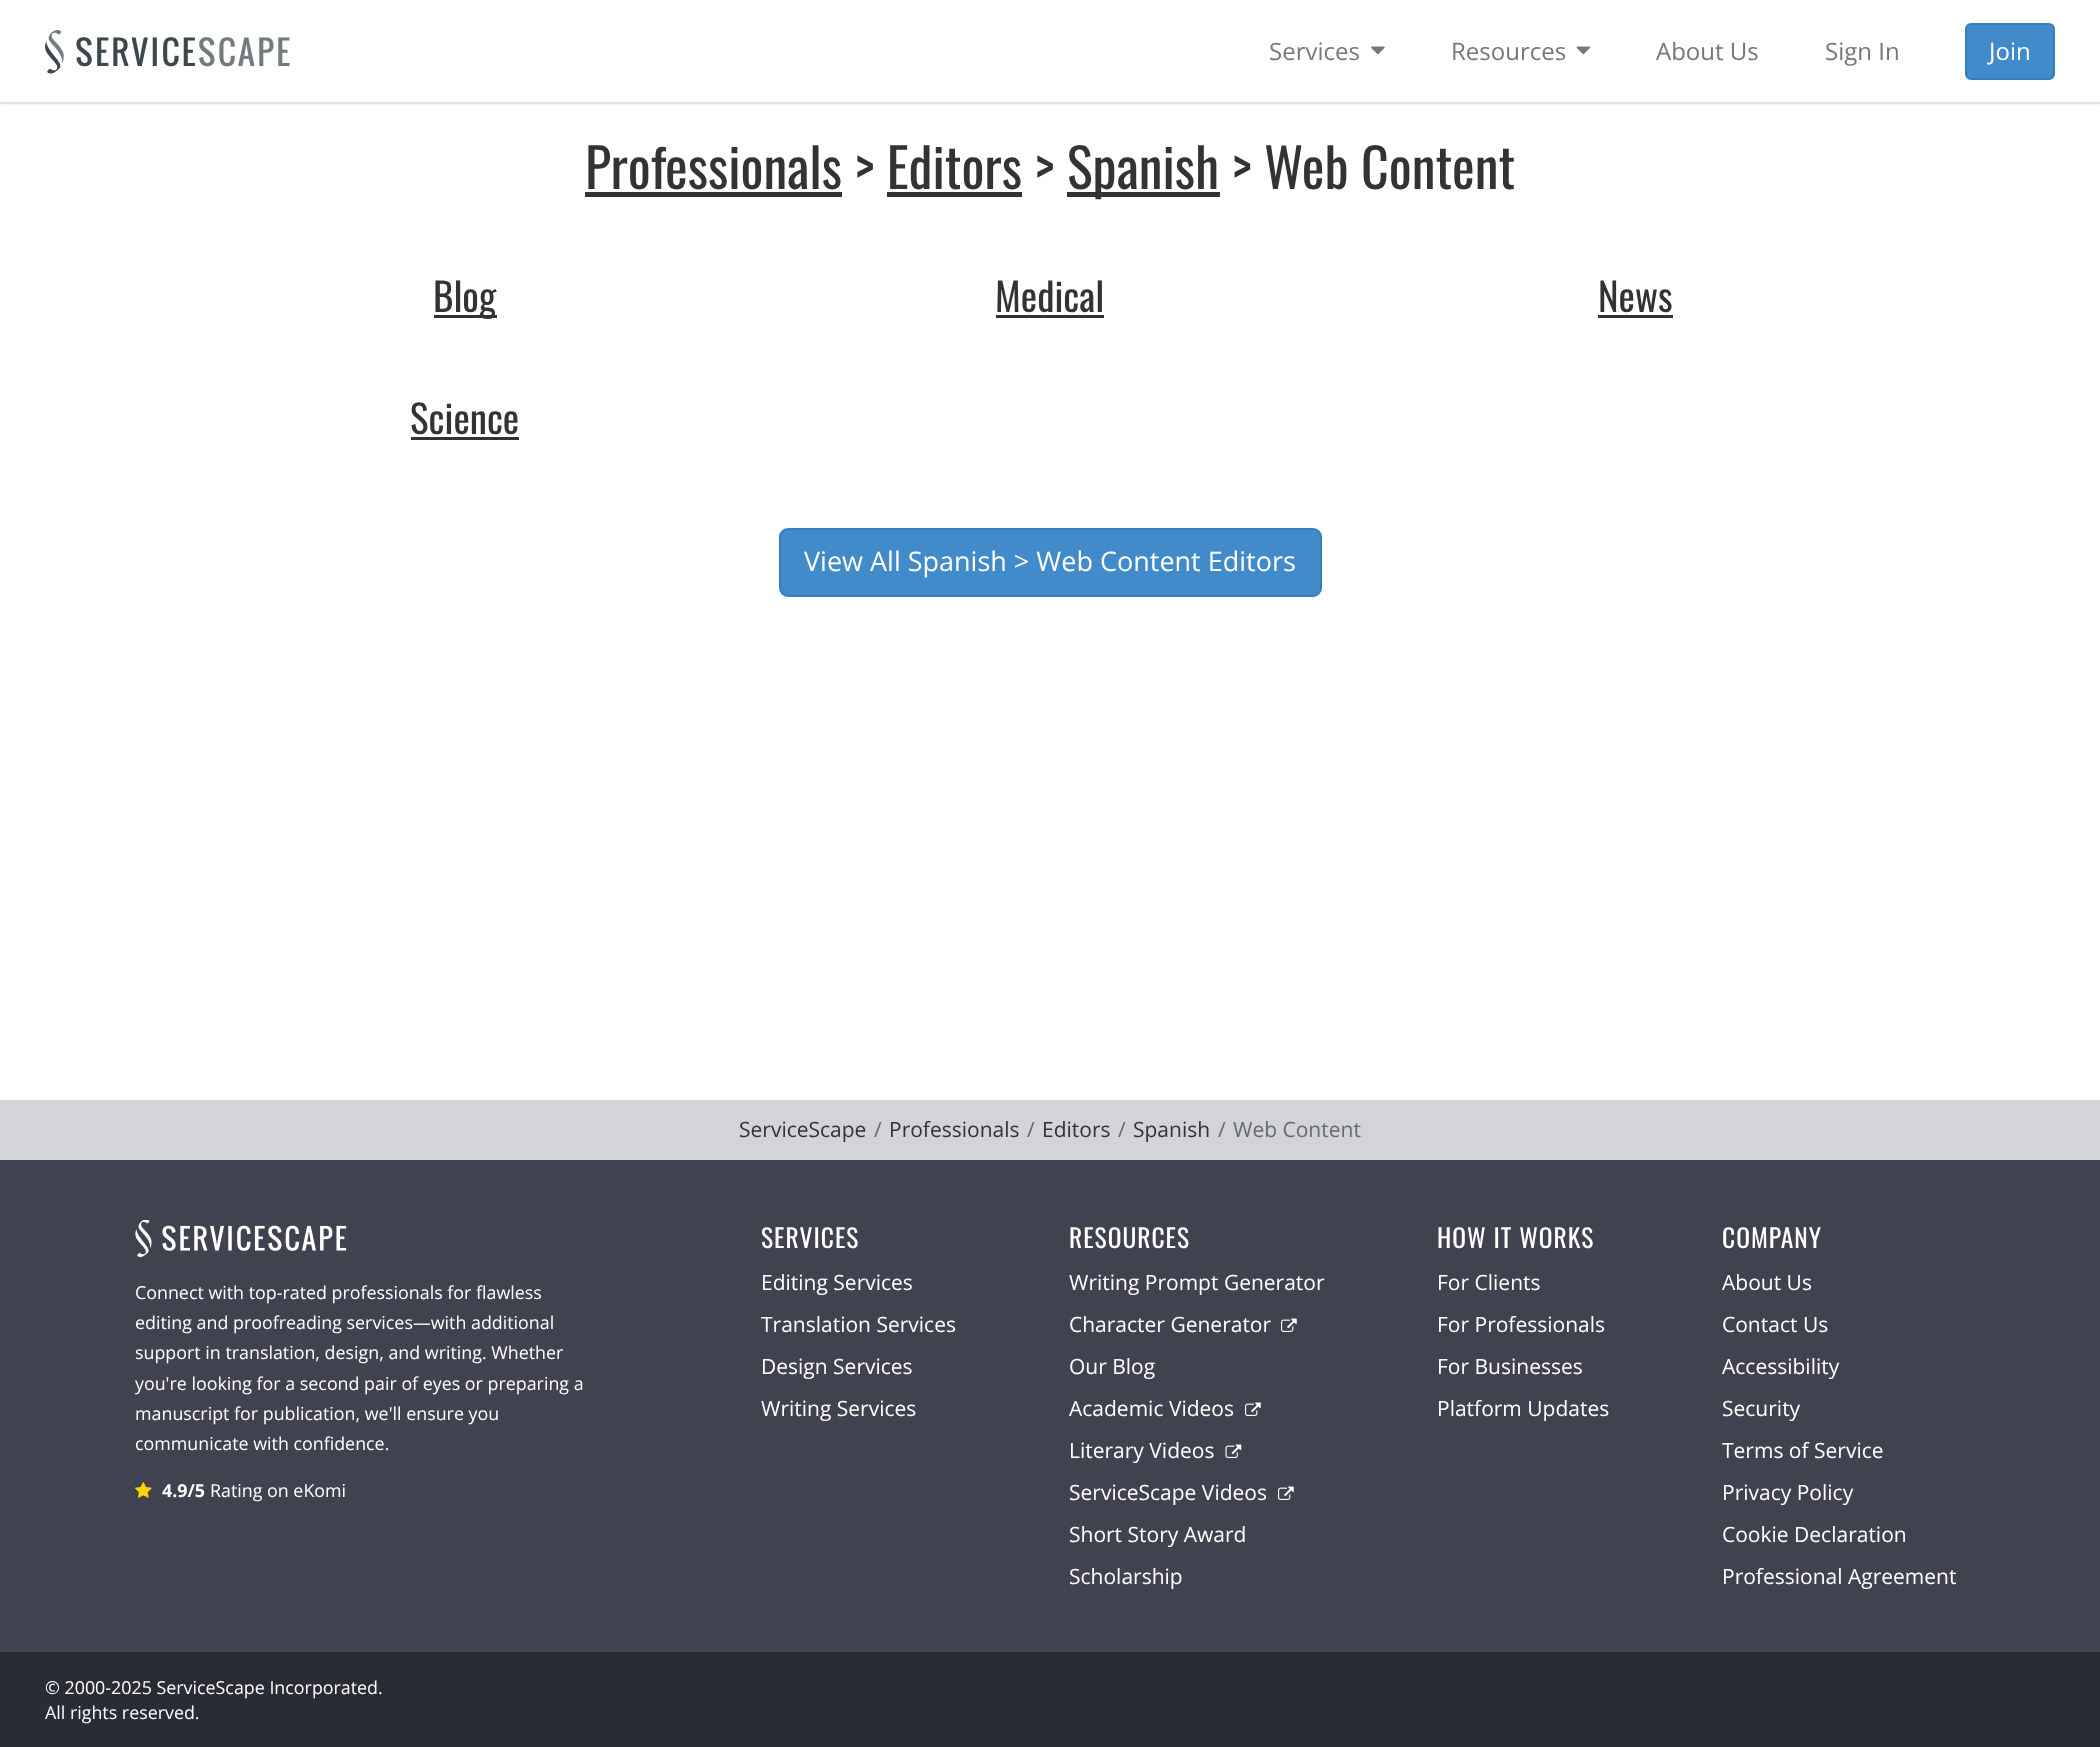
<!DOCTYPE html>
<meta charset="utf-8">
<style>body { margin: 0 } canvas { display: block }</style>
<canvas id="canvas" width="2100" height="1747"></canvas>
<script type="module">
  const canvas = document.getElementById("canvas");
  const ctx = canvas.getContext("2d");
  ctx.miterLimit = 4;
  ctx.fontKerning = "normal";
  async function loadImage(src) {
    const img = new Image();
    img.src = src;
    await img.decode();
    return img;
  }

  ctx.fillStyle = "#ffffff";
  ctx.fillRect(0, 0, 2100, 1747);
  ctx.save();
  ctx.beginPath();
  ctx.rect(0, 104, 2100, 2);
  ctx.clip();
  ctx.fillStyle = "rgba(0, 0, 0, 0.06)";
  ctx.filter = "blur(2px)";
  ctx.beginPath();
  ctx.rect(0, 3, 2100, 102);
  ctx.fill();
  ctx.filter = "none";
  ctx.restore();
  ctx.fillStyle = "#e3e3e3";
  ctx.fillRect(0, 102, 2100, 2);
  ctx.drawImage(await loadImage("img1.png"), 45, 30, 245, 44);
  ctx.font = "24px Open Sans";
  ctx.fillStyle = "#777777";
  ctx.fillText("Services", 1269, 60);
  ctx.drawImage(await loadImage("img2.png"), 1371, 46, 14, 9);
  ctx.fillText("Resources", 1451, 60);
  ctx.drawImage(await loadImage("img3.png"), 1576, 46, 15, 9);
  ctx.fillText("About Us", 1656, 60);
  ctx.fillText("Sign In", 1825, 60);
  ctx.fillStyle = "#428bca";
  ctx.beginPath();
  ctx.roundRect(1966, 24, 88, 55, 5);
  ctx.fill();
  ctx.strokeStyle = "#357ebd";
  ctx.lineWidth = 2;
  ctx.stroke();
  ctx.fillStyle = "#ffffff";
  ctx.fillText("Join", 1989, 60);
  ctx.font = "54px Oswald";
  ctx.fillStyle = "#333333";
  ctx.fillText("Professionals > Editors >", 585, 189);
  ctx.fillRect(585, 192, 257, 5);
  ctx.fillRect(1067, 192, 153, 5);
  ctx.fillText("Spanish > Web Content", 1067, 189);
  ctx.fillRect(887, 192, 135, 5);
  ctx.fillRect(434, 315, 63, 3);
  ctx.font = "39px Oswald";
  ctx.fillText("Blog", 433, 312);
  ctx.fillText("Science", 410, 434);
  ctx.fillRect(411, 437, 108, 3);
  ctx.fillText("Medical", 995, 312);
  ctx.fillRect(996, 315, 108, 3);
  ctx.fillText("News", 1598, 312);
  ctx.fillRect(1598, 315, 75, 3);
  ctx.fillStyle = "#428bca";
  ctx.beginPath();
  ctx.roundRect(780, 529, 541, 67, 8);
  ctx.fill();
  ctx.stroke();
  ctx.font = "27px Open Sans";
  ctx.fillStyle = "#ffffff";
  ctx.fillText("View All Spanish > Web Content Editors", 804, 571);
  ctx.fillStyle = "#40434f";
  ctx.fillRect(0, 1160, 2100, 492);
  ctx.fillStyle = "#d3d4d9";
  ctx.fillRect(0, 1100, 2100, 60);
  ctx.font = "21px Open Sans";
  ctx.fillStyle = "#333333";
  ctx.fillText("ServiceScape", 739, 1137);
  ctx.fillStyle = "#666a73";
  ctx.fillText("/", 874, 1137);
  ctx.fillStyle = "#333333";
  ctx.fillText("Professionals", 889, 1137);
  ctx.fillStyle = "#666a73";
  ctx.fillText("/", 1027, 1137);
  ctx.fillStyle = "#333333";
  ctx.fillText("Editors", 1042, 1137);
  ctx.fillStyle = "#666a73";
  ctx.fillText("/", 1118, 1137);
  ctx.fillStyle = "#333333";
  ctx.fillText("Spanish", 1133, 1137);
  ctx.fillStyle = "#666a73";
  ctx.fillText("/", 1218, 1137);
  ctx.fillText("Web Content", 1233, 1137);
  ctx.drawImage(await loadImage("img4.png"), 135, 1220, 212, 37);
  ctx.font = "17.85px Open Sans";
  ctx.fillStyle = "#ffffff";
  ctx.fillText("Connect with top-rated professionals for flawless", 135, 1299);
  ctx.fillText("editing and proofreading services—with additional", 135, 1329);
  ctx.fillText("support in translation, design, and writing. Whether", 135, 1359);
  ctx.fillText("you're looking for a second pair of eyes or preparing a", 135, 1390);
  ctx.fillText("manuscript for publication, we'll ensure you", 135, 1420);
  ctx.fillText("communicate with confidence.", 135, 1450);
  ctx.drawImage(await loadImage("img5.png"), 135, 1482, 17, 16);
  ctx.font = "bold 17.85px Open Sans";
  ctx.fillText("4.9/5", 162, 1497);
  ctx.font = "17.85px Open Sans";
  ctx.fillText("Rating on eKomi", 210, 1497);
  ctx.letterSpacing = "1px";
  ctx.font = "25.5px Oswald";
  ctx.fillText("SERVICES", 761, 1248);
  ctx.letterSpacing = "0px";
  ctx.font = "21px Open Sans";
  ctx.fillText("Editing Services", 761, 1290);
  ctx.fillText("Translation Services", 761, 1332);
  ctx.fillText("Design Services", 761, 1374);
  ctx.fillText("Writing Services", 761, 1416);
  ctx.letterSpacing = "1px";
  ctx.font = "25.5px Oswald";
  ctx.fillText("RESOURCES", 1069, 1248);
  ctx.letterSpacing = "0px";
  ctx.font = "21px Open Sans";
  ctx.fillText("Writing Prompt Generator", 1069, 1290);
  ctx.fillText("Character Generator", 1069, 1332);
  ctx.drawImage(await loadImage("img6.png"), 1281, 1318, 16, 14);
  ctx.fillText("Our Blog", 1069, 1374);
  ctx.fillText("Academic Videos", 1069, 1416);
  ctx.drawImage(await loadImage("img6.png"), 1245, 1402, 16, 14);
  ctx.fillText("Literary Videos", 1069, 1458);
  ctx.drawImage(await loadImage("img7.png"), 1225, 1444, 17, 14);
  ctx.fillText("ServiceScape Videos", 1069, 1500);
  ctx.drawImage(await loadImage("img6.png"), 1278, 1486, 16, 14);
  ctx.fillText("Short Story Award", 1069, 1542);
  ctx.fillText("Scholarship", 1069, 1584);
  ctx.letterSpacing = "1px";
  ctx.font = "25.5px Oswald";
  ctx.fillText("HOW IT WORKS", 1437, 1248);
  ctx.letterSpacing = "0px";
  ctx.font = "21px Open Sans";
  ctx.fillText("For Clients", 1437, 1290);
  ctx.fillText("For Professionals", 1437, 1332);
  ctx.fillText("For Businesses", 1437, 1374);
  ctx.fillText("Platform Updates", 1437, 1416);
  ctx.letterSpacing = "1px";
  ctx.font = "25.5px Oswald";
  ctx.fillText("COMPANY", 1722, 1248);
  ctx.letterSpacing = "0px";
  ctx.font = "21px Open Sans";
  ctx.fillText("About Us", 1722, 1290);
  ctx.fillText("Contact Us", 1722, 1332);
  ctx.fillText("Accessibility", 1722, 1374);
  ctx.fillText("Security", 1722, 1416);
  ctx.fillText("Terms of Service", 1722, 1458);
  ctx.fillText("Privacy Policy", 1722, 1500);
  ctx.fillText("Cookie Declaration", 1722, 1542);
  ctx.fillText("Professional Agreement", 1722, 1584);
  ctx.fillStyle = "#2a2c35";
  ctx.fillRect(0, 1652, 2100, 95);
  ctx.font = "17.85px Open Sans";
  ctx.fillStyle = "#ffffff";
  ctx.fillText("© 2000-2025 ServiceScape Incorporated.", 45, 1694);
  ctx.fillText("All rights reserved.", 45, 1719);
</script>
